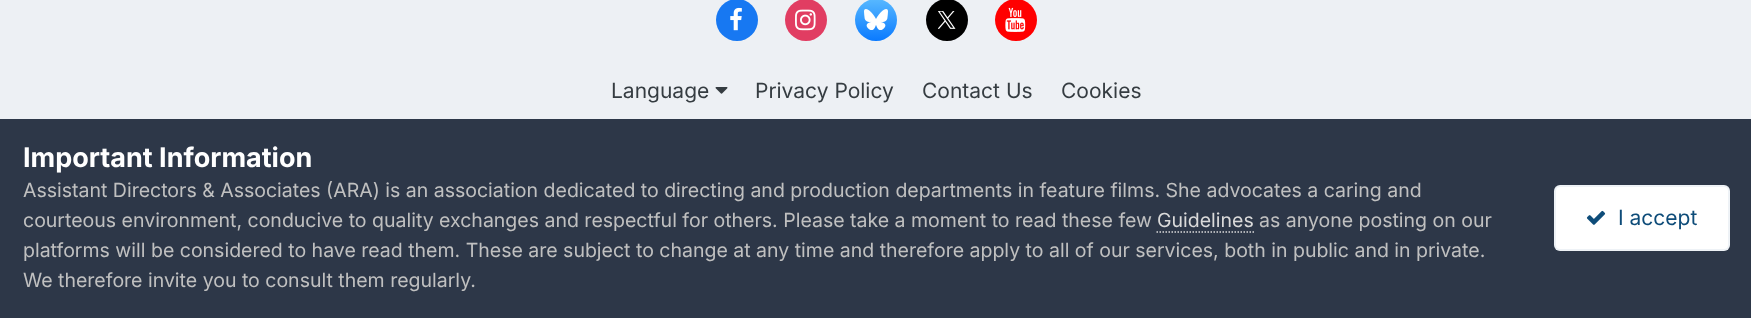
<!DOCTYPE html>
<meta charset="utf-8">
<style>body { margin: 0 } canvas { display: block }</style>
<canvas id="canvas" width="1751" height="318"></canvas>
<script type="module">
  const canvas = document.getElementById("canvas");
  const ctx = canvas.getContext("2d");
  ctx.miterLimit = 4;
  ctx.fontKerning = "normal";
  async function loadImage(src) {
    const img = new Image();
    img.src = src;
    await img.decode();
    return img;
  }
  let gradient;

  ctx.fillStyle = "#edf0f4";
  ctx.fillRect(0, 0, 1751, 318);
  ctx.fillStyle = "#1778f2";
  ctx.beginPath();
  ctx.arc(737, 20, 21, 0, Math.PI * 2);
  ctx.fill();
  ctx.drawImage(await loadImage("img1.png"), 730, 7, 12, 24);
  ctx.fillStyle = "#e13d62";
  ctx.beginPath();
  ctx.arc(806, 20, 21, 0, Math.PI * 2);
  ctx.fill();
  ctx.drawImage(await loadImage("img2.png"), 795, 9, 21, 22);
  gradient = ctx.createLinearGradient(876, -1.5, 876, 41);
  gradient.addColorStop(0, "#59b9ff");
  gradient.addColorStop(1, "#0a7aff");
  ctx.fillStyle = gradient;
  ctx.beginPath();
  ctx.arc(876, 20, 21, 0, Math.PI * 2);
  ctx.fill();
  ctx.drawImage(await loadImage("img3.png"), 864, 9, 24, 21);
  ctx.fillStyle = "#000000";
  ctx.beginPath();
  ctx.arc(947, 20, 21, 0, Math.PI * 2);
  ctx.fill();
  ctx.drawImage(await loadImage("img4.png"), 938, 11, 18, 18);
  ctx.fillStyle = "#ff0000";
  ctx.beginPath();
  ctx.arc(1016, 20, 21, 0, Math.PI * 2);
  ctx.fill();
  ctx.drawImage(await loadImage("img5.png"), 1005, 7, 21, 25);
  ctx.font = "21px Inter";
  ctx.fillStyle = "#353c41";
  ctx.fillText("Language", 611, 98);
  ctx.drawImage(await loadImage("img6.png"), 715, 87, 13, 7);
  ctx.fillText("Privacy Policy", 755, 98);
  ctx.fillText("Contact Us", 922, 98);
  ctx.fillText("Cookies", 1061, 98);
  ctx.fillStyle = "#2d3748";
  ctx.fillRect(0, 119, 1751, 199);
  ctx.font = "bold 27px Inter";
  ctx.fillStyle = "#ffffff";
  ctx.fillText("Important Information", 23, 167);
  ctx.font = "19.5px Inter";
  ctx.fillStyle = "#c0c0c0";
  ctx.fillText("Assistant Directors & Associates (ARA) is an association dedicated to directing and production departments in feature films. She advocates a caring and", 23, 197);
  ctx.fillText("courteous environment, conducive to quality exchanges and respectful for others. Please take a moment to read these few", 23, 227);
  ctx.fillStyle = "#dadada";
  ctx.fillText("Guidelines", 1157, 227);
  ctx.beginPath();
  ctx.moveTo(1156.5, 232);
  ctx.lineTo(1254, 232);
  ctx.strokeStyle = "#dadada";
  ctx.lineWidth = 1.5;
  ctx.setLineDash([1.5, 1.5]);
  ctx.stroke();
  ctx.fillStyle = "#c0c0c0";
  ctx.fillText("as anyone posting on our", 1259, 227);
  ctx.fillText("platforms will be considered to have read them. These are subject to change at any time and therefore apply to all of our services, both in public and in private.", 23, 257);
  ctx.fillText("We therefore invite you to consult them regularly.", 23, 287);
  ctx.fillStyle = "#ffffff";
  ctx.beginPath();
  ctx.roundRect(1554, 185, 176, 66, 6);
  ctx.fill();
  ctx.beginPath();
  ctx.roundRect(1555, 186, 174, 64, 5);
  ctx.strokeStyle = "rgba(14, 76, 121, 0.07)";
  ctx.lineWidth = 2;
  ctx.setLineDash([]);
  ctx.stroke();
  ctx.drawImage(await loadImage("img7.png"), 1586, 210, 20, 15);
  ctx.font = "21px Inter";
  ctx.fillStyle = "#0e4c79";
  ctx.fillText("I accept", 1618, 225);
</script>
